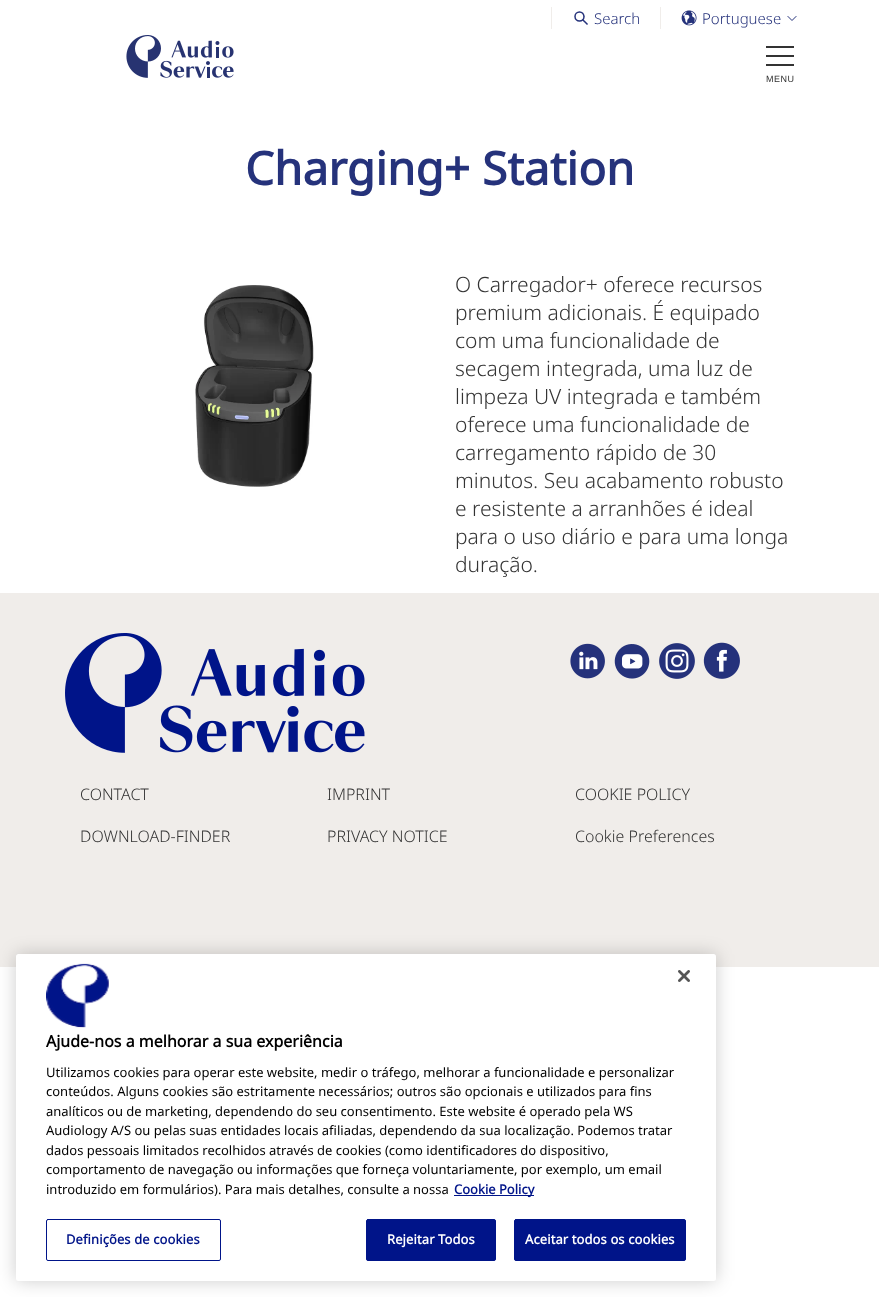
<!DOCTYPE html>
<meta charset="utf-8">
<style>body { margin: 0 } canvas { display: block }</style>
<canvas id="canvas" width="879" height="1297"></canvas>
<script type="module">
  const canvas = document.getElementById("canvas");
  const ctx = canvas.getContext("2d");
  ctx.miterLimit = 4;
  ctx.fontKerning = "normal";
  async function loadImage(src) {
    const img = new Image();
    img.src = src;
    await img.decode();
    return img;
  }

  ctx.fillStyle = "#ffffff";
  ctx.fillRect(0, 0, 879, 1297);
  ctx.fillStyle = "#f0edea";
  ctx.fillRect(660, 7, 1, 22);
  ctx.fillRect(551, 7, 1, 22);
  ctx.beginPath();
  ctx.moveTo(583, 20);
  ctx.lineTo(587, 24);
  ctx.strokeStyle = "#25327b";
  ctx.lineWidth = 1.5;
  ctx.lineCap = "square";
  ctx.stroke();
  ctx.beginPath();
  ctx.arc(579.5, 16.5, 4.5, 0, Math.PI * 2);
  ctx.stroke();
  ctx.font = "300 15px Noto Sans";
  ctx.fillStyle = "#25327b";
  ctx.fillText("Search", 594, 24);
  ctx.drawImage(await loadImage("img1.png"), 681, 10, 16, 16);
  ctx.fillText("Portuguese", 702, 24);
  ctx.beginPath();
  ctx.moveTo(788, 16.5);
  ctx.lineTo(792, 20.5);
  ctx.lineTo(796, 16.5);
  ctx.lineWidth = 1;
  ctx.stroke();
  ctx.drawImage(await loadImage("img2.png"), 126, 35, 108, 43);
  ctx.fillStyle = "#333333";
  ctx.fillRect(766, 46, 28, 2);
  ctx.fillRect(766, 55, 28, 2);
  ctx.fillRect(766, 64, 28, 2);
  ctx.letterSpacing = "0.5px";
  ctx.font = "9px Liberation Sans";
  ctx.fillText("MENU", 766, 82);
  ctx.letterSpacing = "0px";
  ctx.font = "bold 46px Noto Sans";
  ctx.fillStyle = "#25327b";
  ctx.fillText("Charging+ Station", 245, 185);
  ctx.drawImage(await loadImage("img3.png"), 195, 285, 119, 202);
  ctx.font = "300 21px Noto Sans";
  ctx.fillStyle = "#333333";
  ctx.fillText("O Carregador+ oferece recursos", 455, 292);
  ctx.fillText("premium adicionais. É equipado", 455, 320);
  ctx.fillText("com uma funcionalidade de", 455, 348);
  ctx.fillText("secagem integrada, uma luz de", 455, 376);
  ctx.fillText("limpeza UV integrada e também", 455, 404);
  ctx.fillText("oferece uma funcionalidade de", 455, 432);
  ctx.fillText("carregamento rápido de 30", 455, 460);
  ctx.fillText("minutos. Seu acabamento robusto", 455, 488);
  ctx.fillText("e resistente a arranhões é ideal", 455, 516);
  ctx.fillText("para o uso diário e para uma longa", 455, 544);
  ctx.fillText("duração.", 455, 572);
  ctx.fillStyle = "#f0edea";
  ctx.fillRect(0, 593, 879, 374);
  ctx.drawImage(await loadImage("img4.png"), 65, 633, 300, 120);
  ctx.drawImage(await loadImage("img5.png"), 570, 643, 35, 36);
  ctx.drawImage(await loadImage("img6.png"), 614, 644, 36, 35);
  ctx.drawImage(await loadImage("img7.png"), 659, 643, 36, 36);
  ctx.drawImage(await loadImage("img8.png"), 703, 642, 37, 37);
  ctx.font = "300 16px Noto Sans";
  ctx.fillStyle = "#333333";
  ctx.fillText("CONTACT", 80, 800);
  ctx.fillText("DOWNLOAD-FINDER", 80, 842);
  ctx.fillText("IMPRINT", 327, 800);
  ctx.fillText("PRIVACY NOTICE", 327, 842);
  ctx.fillText("COOKIE POLICY", 575, 800);
  ctx.fillText("Cookie Preferences", 575, 842);
  ctx.fillStyle = "rgba(0, 0, 0, 0.2)";
  ctx.filter = "blur(9px)";
  ctx.beginPath();
  ctx.roundRect(16, 954, 700, 327, 2.5);
  ctx.fill();
  ctx.filter = "none";
  ctx.fillStyle = "#ffffff";
  ctx.beginPath();
  ctx.roundRect(16, 954, 700, 327, 2.5);
  ctx.fill();
  ctx.drawImage(await loadImage("img9.png"), 678, 970, 12, 12);
  ctx.drawImage(await loadImage("img10.png"), 46, 963, 63, 65);
  ctx.font = "bold 16px Noto Sans";
  ctx.fillStyle = "#000000";
  ctx.fillText("Ajude-nos a melhorar a sua experiência", 46, 1047);
  ctx.font = "13px Noto Sans";
  ctx.fillText("Utilizamos cookies para operar este website, medir o tráfego, melhorar a funcionalidade e personalizar", 46, 1077);
  ctx.fillText("conteúdos. Alguns cookies são estritamente necessários; outros são opcionais e utilizados para fins", 46, 1096);
  ctx.fillText("analíticos ou de marketing, dependendo do seu consentimento. Este website é operado pela WS", 46, 1116);
  ctx.fillText("Audiology A/S ou pelas suas entidades locais afiliadas, dependendo da sua localização. Podemos tratar", 46, 1135);
  ctx.fillText("dados pessoais limitados recolhidos através de cookies (como identificadores do dispositivo,", 46, 1155);
  ctx.fillText("comportamento de navegação ou informações que forneça voluntariamente, por exemplo, um email", 46, 1174);
  ctx.fillText("introduzido em formulários). Para mais detalhes, consulte a nossa", 46, 1194);
  ctx.fillStyle = "#001489";
  ctx.fillRect(454, 1195, 80, 1);
  ctx.font = "bold 13px Noto Sans";
  ctx.fillText("Cookie Policy", 454, 1194);
  ctx.beginPath();
  ctx.roundRect(46.5, 1219.5, 174, 41, 1.5);
  ctx.strokeStyle = "#001489";
  ctx.stroke();
  ctx.letterSpacing = "0.1px";
  ctx.fillText("Definições de cookies", 66, 1244);
  ctx.beginPath();
  ctx.roundRect(366.5, 1219.5, 129, 41, 1.5);
  ctx.fill();
  ctx.stroke();
  ctx.fillStyle = "#ffffff";
  ctx.fillText("Rejeitar Todos", 387, 1244);
  ctx.fillStyle = "#001489";
  ctx.beginPath();
  ctx.roundRect(514.5, 1219.5, 171, 41, 1.5);
  ctx.fill();
  ctx.stroke();
  ctx.fillStyle = "#ffffff";
  ctx.fillText("Aceitar todos os cookies", 525, 1244);
</script>
